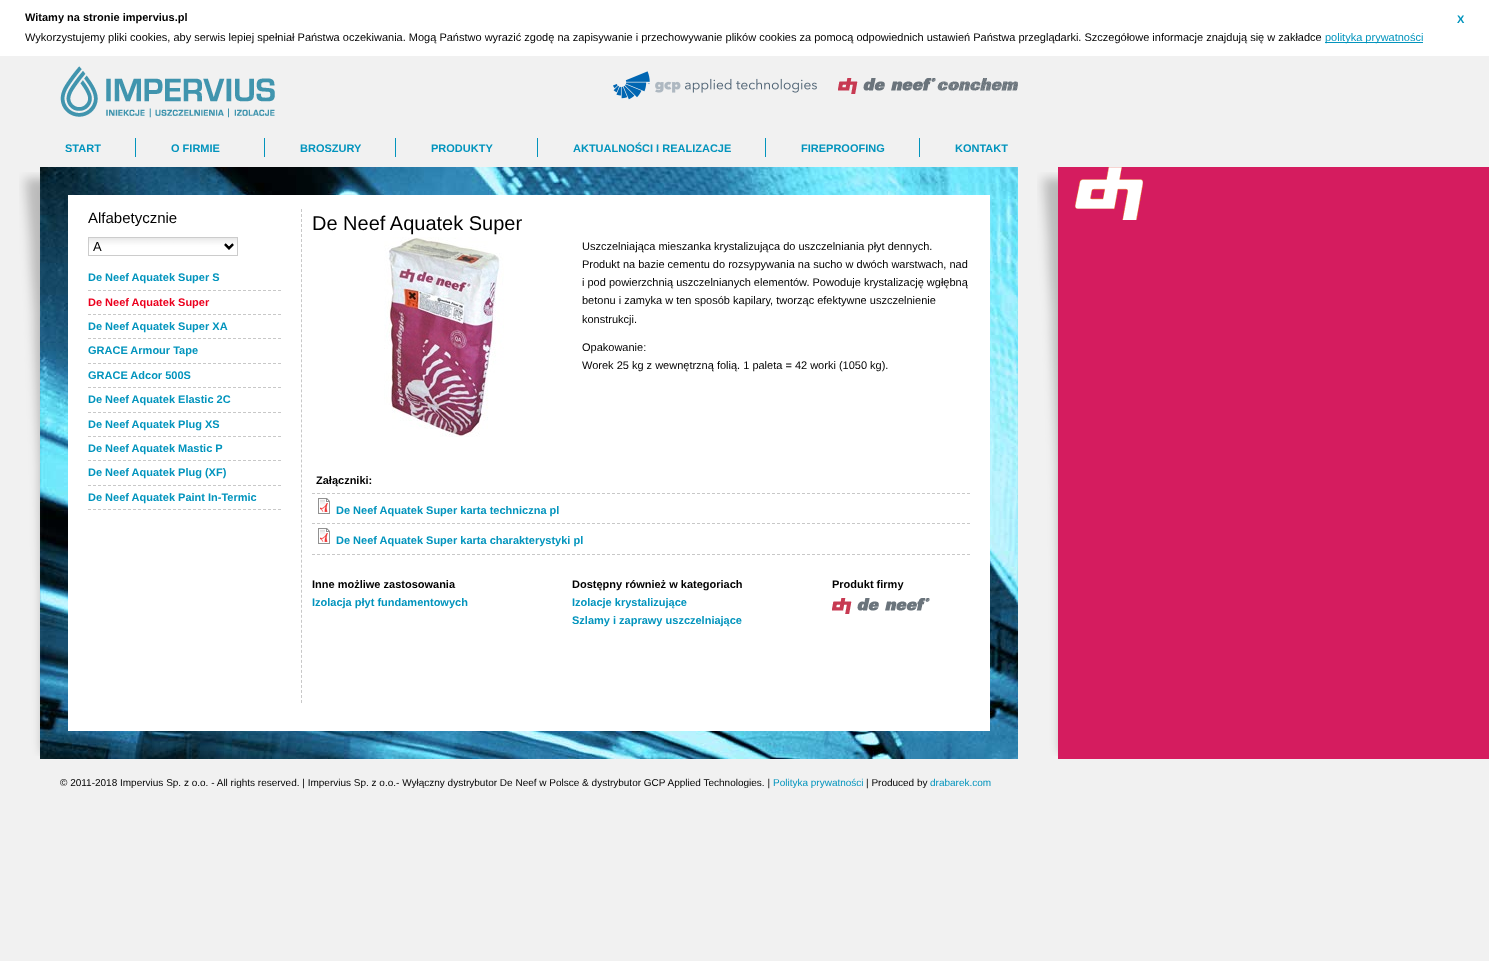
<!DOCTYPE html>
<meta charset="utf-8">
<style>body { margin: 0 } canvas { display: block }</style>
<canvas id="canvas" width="1489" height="961"></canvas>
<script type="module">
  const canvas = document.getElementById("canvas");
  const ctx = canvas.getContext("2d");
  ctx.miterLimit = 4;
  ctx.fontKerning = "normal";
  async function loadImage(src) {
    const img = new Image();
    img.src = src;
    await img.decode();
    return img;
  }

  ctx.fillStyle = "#f1f1f1";
  ctx.fillRect(0, 0, 1489, 961);
  ctx.fillStyle = "#ffffff";
  ctx.fillRect(0, 0, 1489, 56);
  ctx.font = "bold 11px Liberation Sans";
  ctx.fillStyle = "#000000";
  ctx.fillText("Witamy na stronie impervius.pl", 25, 21);
  ctx.fillStyle = "#0294bd";
  ctx.fillText("X", 1457, 23);
  ctx.font = "11px Liberation Sans";
  ctx.fillStyle = "#000000";
  ctx.fillText("Wykorzystujemy pliki cookies, aby serwis lepiej spełniał Państwa oczekiwania. Mogą Państwo wyrazić zgodę na zapisywanie i przechowywanie plików cookies za pomocą odpowiednich ustawień Państwa przeglądarki. Szczegółowe informacje znajdują się w zakładce", 25, 41);
  ctx.fillStyle = "#0294bd";
  ctx.fillRect(1325, 42, 98, 1);
  ctx.fillText("polityka prywatności", 1325, 41);
  ctx.drawImage(await loadImage("img1.png"), 60, 66, 215, 52);
  ctx.drawImage(await loadImage("img2.png"), 613, 71, 204, 29);
  ctx.drawImage(await loadImage("img3.png"), 838, 78, 180, 16);
  ctx.fillRect(135, 138, 1, 19);
  ctx.font = "bold 11px Liberation Sans";
  ctx.fillText("START", 65, 152);
  ctx.fillRect(264, 138, 1, 19);
  ctx.fillText("O FIRMIE", 171, 152);
  ctx.fillRect(395, 138, 1, 19);
  ctx.fillText("BROSZURY", 300, 152);
  ctx.fillRect(537, 138, 1, 19);
  ctx.fillText("PRODUKTY", 431, 152);
  ctx.fillRect(765, 138, 1, 19);
  ctx.fillText("AKTUALNOŚCI I REALIZACJE", 573, 152);
  ctx.fillRect(919, 138, 1, 19);
  ctx.fillText("FIREPROOFING", 801, 152);
  ctx.fillText("KONTAKT", 955, 152);
  ctx.fillStyle = "#d51c5f";
  ctx.fillRect(1058, 167, 431, 592);
  ctx.drawImage(await loadImage("img4.png"), 1075, 167, 68, 53);
  ctx.drawImage(await loadImage("img5.png"), 19, 172, 21, 584);
  ctx.drawImage(await loadImage("img5.png"), 1037, 172, 21, 584);
  ctx.drawImage(await loadImage("img6.png"), 40, 167, 978, 592);
  ctx.fillStyle = "#ffffff";
  ctx.fillRect(68, 195, 922, 536);
  ctx.font = "15px Liberation Sans";
  ctx.fillStyle = "#000000";
  ctx.fillText("Alfabetycznie", 88, 223);
  ctx.drawImage(await loadImage("img7.png"), 89, 238, 148, 12);
  ctx.strokeStyle = "#cccccc";
  ctx.strokeRect(88.5, 237.5, 149, 18);
  ctx.beginPath();
  ctx.moveTo(225, 244.5);
  ctx.lineTo(229, 248.5);
  ctx.lineTo(233, 244.5);
  ctx.strokeStyle = "#000000";
  ctx.lineWidth = 2;
  ctx.stroke();
  ctx.font = "13px Liberation Sans";
  ctx.fillText("A", 93, 251);
  ctx.beginPath();
  ctx.moveTo(88, 290.5);
  ctx.lineTo(281, 290.5);
  ctx.strokeStyle = "#c8c8c8";
  ctx.lineWidth = 1;
  ctx.setLineDash([3, 2]);
  ctx.stroke();
  ctx.font = "bold 11px Liberation Sans";
  ctx.fillStyle = "#0294bd";
  ctx.fillText("De Neef Aquatek Super S", 88, 281);
  ctx.beginPath();
  ctx.moveTo(88, 314.5);
  ctx.lineTo(281, 314.5);
  ctx.stroke();
  ctx.fillStyle = "#eb001e";
  ctx.fillText("De Neef Aquatek Super", 88, 306);
  ctx.beginPath();
  ctx.moveTo(88, 338.5);
  ctx.lineTo(281, 338.5);
  ctx.stroke();
  ctx.fillStyle = "#0294bd";
  ctx.fillText("De Neef Aquatek Super XA", 88, 330);
  ctx.beginPath();
  ctx.moveTo(88, 363.5);
  ctx.lineTo(281, 363.5);
  ctx.stroke();
  ctx.fillText("GRACE Armour Tape", 88, 354);
  ctx.beginPath();
  ctx.moveTo(88, 387.5);
  ctx.lineTo(281, 387.5);
  ctx.stroke();
  ctx.fillText("GRACE Adcor 500S", 88, 379);
  ctx.beginPath();
  ctx.moveTo(88, 412.5);
  ctx.lineTo(281, 412.5);
  ctx.stroke();
  ctx.fillText("De Neef Aquatek Elastic 2C", 88, 403);
  ctx.beginPath();
  ctx.moveTo(88, 436.5);
  ctx.lineTo(281, 436.5);
  ctx.stroke();
  ctx.fillText("De Neef Aquatek Plug XS", 88, 428);
  ctx.beginPath();
  ctx.moveTo(88, 460.5);
  ctx.lineTo(281, 460.5);
  ctx.stroke();
  ctx.fillText("De Neef Aquatek Mastic P", 88, 452);
  ctx.beginPath();
  ctx.moveTo(88, 485.5);
  ctx.lineTo(281, 485.5);
  ctx.stroke();
  ctx.fillText("De Neef Aquatek Plug (XF)", 88, 476);
  ctx.beginPath();
  ctx.moveTo(88, 509.5);
  ctx.lineTo(281, 509.5);
  ctx.stroke();
  ctx.fillText("De Neef Aquatek Paint In-Termic", 88, 501);
  ctx.beginPath();
  ctx.moveTo(301.5, 209);
  ctx.lineTo(301.5, 703);
  ctx.setLineDash([3, 2.01]);
  ctx.stroke();
  ctx.font = "20px Liberation Sans";
  ctx.fillStyle = "#000000";
  ctx.fillText("De Neef Aquatek Super", 312, 230);
  ctx.drawImage(await loadImage("img8.png"), 384, 237, 120, 200);
  ctx.font = "11px Liberation Sans";
  ctx.fillText("Uszczelniająca mieszanka krystalizująca do uszczelniania płyt dennych.", 582, 250);
  ctx.fillText("Produkt na bazie cementu do rozsypywania na sucho w dwóch warstwach, nad", 582, 268);
  ctx.fillText("i pod powierzchnią uszczelnianych elementów. Powoduje krystalizację wgłębną", 582, 286);
  ctx.fillText("betonu i zamyka w ten sposób kapilary, tworząc efektywne uszczelnienie", 582, 304);
  ctx.fillText("konstrukcji.", 582, 323);
  ctx.fillText("Opakowanie:", 582, 351);
  ctx.fillText("Worek 25 kg z wewnętrzną folią. 1 paleta = 42 worki (1050 kg).", 582, 369);
  ctx.beginPath();
  ctx.moveTo(312, 493.5);
  ctx.lineTo(970, 493.5);
  ctx.setLineDash([3, 2]);
  ctx.stroke();
  ctx.font = "bold 11px Liberation Sans";
  ctx.fillText("Załączniki:", 316, 484);
  ctx.beginPath();
  ctx.moveTo(312, 523.5);
  ctx.lineTo(970, 523.5);
  ctx.stroke();
  ctx.drawImage(await loadImage("img9.png"), 318, 498, 12, 16);
  ctx.fillStyle = "#0294bd";
  ctx.fillText("De Neef Aquatek Super karta techniczna pl", 336, 514);
  ctx.beginPath();
  ctx.moveTo(312, 554.5);
  ctx.lineTo(970, 554.5);
  ctx.stroke();
  ctx.drawImage(await loadImage("img9.png"), 318, 528, 12, 16);
  ctx.fillText("De Neef Aquatek Super karta charakterystyki pl", 336, 544);
  ctx.fillStyle = "#000000";
  ctx.fillText("Inne możliwe zastosowania", 312, 588);
  ctx.fillStyle = "#0294bd";
  ctx.fillText("Izolacja płyt fundamentowych", 312, 606);
  ctx.fillStyle = "#000000";
  ctx.fillText("Dostępny również w kategoriach", 572, 588);
  ctx.fillStyle = "#0294bd";
  ctx.fillText("Izolacje krystalizujące", 572, 606);
  ctx.fillText("Szlamy i zaprawy uszczelniające", 572, 624);
  ctx.fillStyle = "#000000";
  ctx.fillText("Produkt firmy", 832, 588);
  ctx.drawImage(await loadImage("img10.png"), 832, 598, 98, 16);
  ctx.font = "10px Liberation Sans";
  ctx.fillText("© 2011-2018 Impervius Sp. z o.o. - All rights reserved. | Impervius Sp. z o.o.- Wyłączny dystrybutor De Neef w Polsce & dystrybutor GCP Applied Technologies. |", 60, 786);
  ctx.fillStyle = "#0294bd";
  ctx.fillText("Polityka prywatności", 773, 786);
  ctx.fillStyle = "#000000";
  ctx.fillText("| Produced by", 866, 786);
  ctx.fillStyle = "#0294bd";
  ctx.fillText("drabarek.com", 930, 786);
</script>
